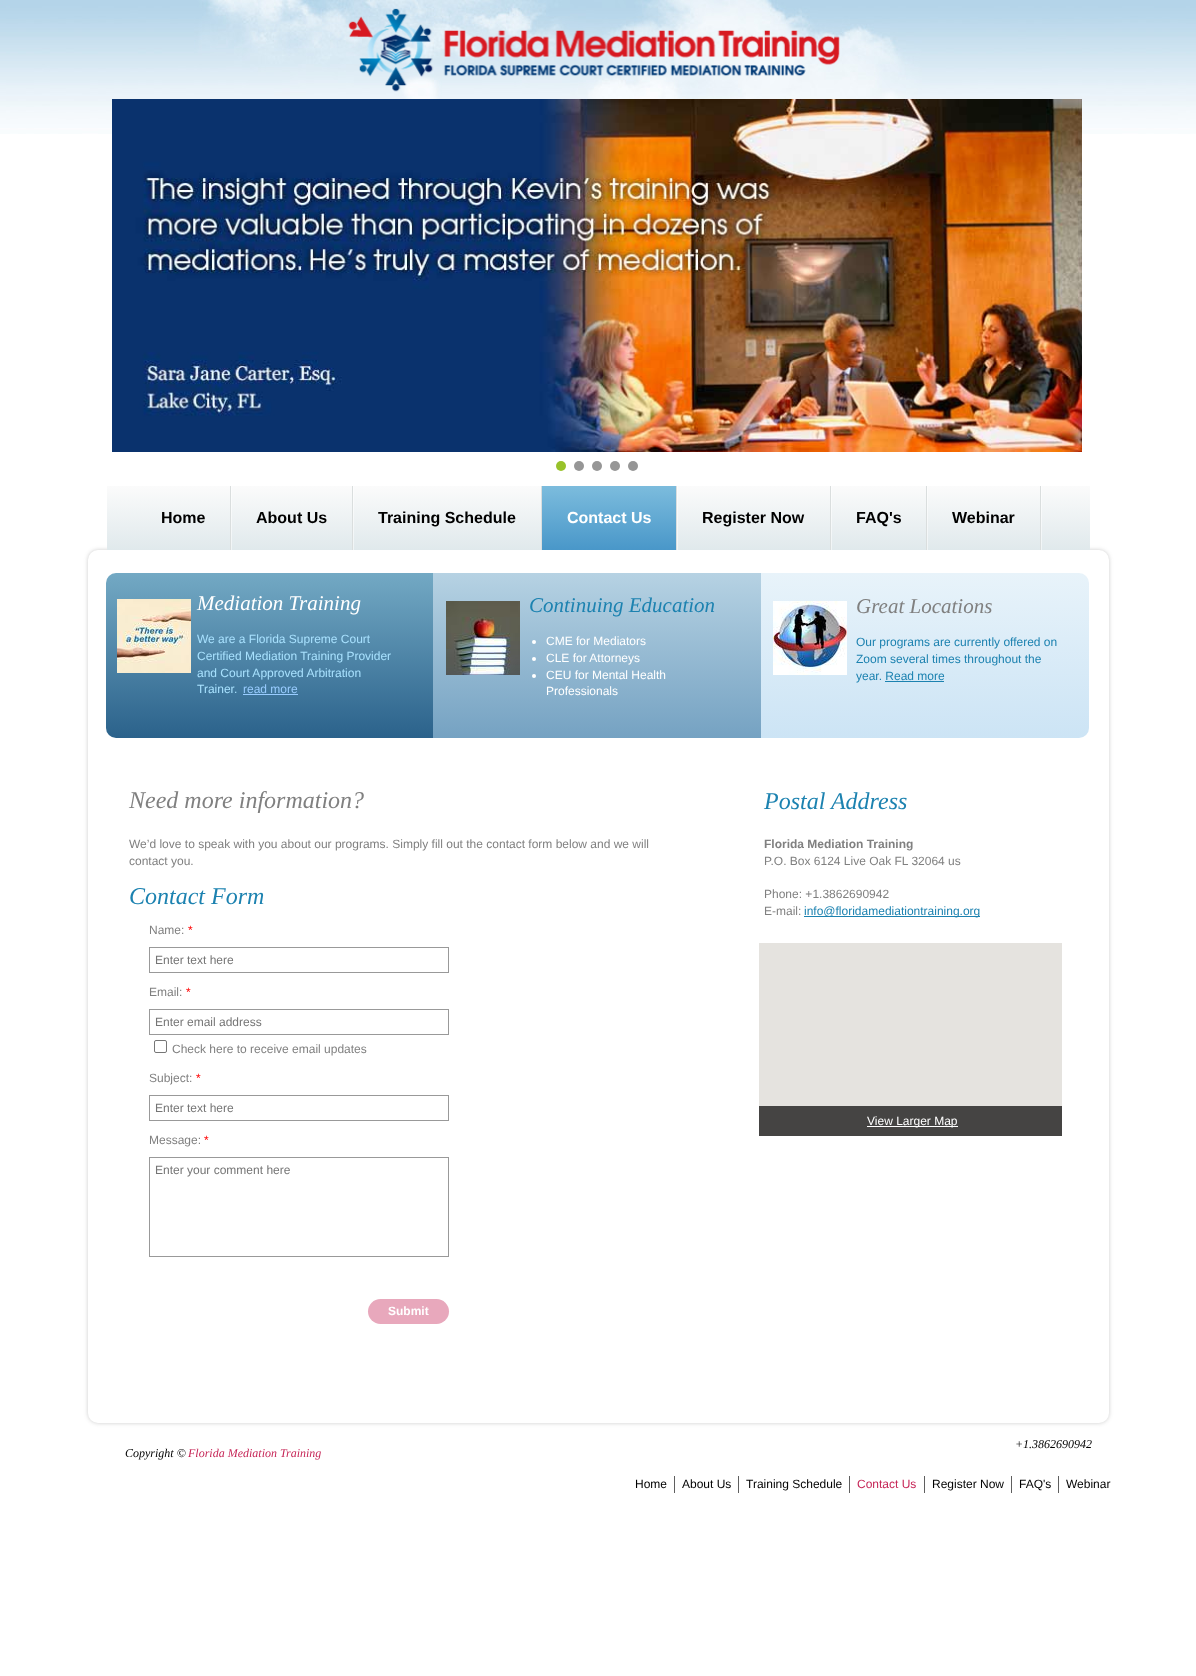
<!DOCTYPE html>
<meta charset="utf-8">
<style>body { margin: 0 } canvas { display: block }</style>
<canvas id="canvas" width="1196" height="1676"></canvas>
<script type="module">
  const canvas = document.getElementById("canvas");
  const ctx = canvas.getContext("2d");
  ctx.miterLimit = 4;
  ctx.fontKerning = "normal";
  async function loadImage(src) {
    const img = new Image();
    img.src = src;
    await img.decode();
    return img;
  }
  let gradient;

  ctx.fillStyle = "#ffffff";
  ctx.fillRect(0, 0, 1196, 1676);
  ctx.drawImage(await loadImage("img1.png"), 0, 0, 1196, 134);
  ctx.fillStyle = "rgba(50, 50, 50, 0.25)";
  ctx.filter = "blur(2px)";
  ctx.beginPath();
  ctx.roundRect(88, 550, 1021, 873, 10);
  ctx.fill();
  ctx.filter = "none";
  ctx.fillStyle = "#ffffff";
  ctx.beginPath();
  ctx.roundRect(88, 550, 1021, 873, 10);
  ctx.fill();
  ctx.drawImage(await loadImage("img2.png"), 348, 8, 492, 84);
  ctx.drawImage(await loadImage("img3.png"), 112, 99, 970, 353);
  ctx.fillStyle = "#98c22a";
  ctx.beginPath();
  ctx.arc(561, 466, 5, 0, Math.PI * 2);
  ctx.fill();
  ctx.fillStyle = "#969696";
  ctx.beginPath();
  ctx.arc(579, 466, 5, 0, Math.PI * 2);
  ctx.fill();
  ctx.beginPath();
  ctx.arc(597, 466, 5, 0, Math.PI * 2);
  ctx.fill();
  ctx.beginPath();
  ctx.arc(615, 466, 5, 0, Math.PI * 2);
  ctx.fill();
  ctx.beginPath();
  ctx.arc(633, 466, 5, 0, Math.PI * 2);
  ctx.fill();
  gradient = ctx.createLinearGradient(599, 486, 599, 550);
  gradient.addColorStop(0, "#fbfbfb");
  gradient.addColorStop(1, "#e0e9ec");
  ctx.fillStyle = gradient;
  ctx.fillRect(107, 486, 983, 64);
  ctx.fillStyle = "rgba(255, 255, 255, 0.5)";
  ctx.fillRect(231, 486, 1, 64);
  ctx.fillStyle = "#dadede";
  ctx.fillRect(230, 486, 1, 64);
  ctx.font = "bold 16px Liberation Sans";
  ctx.fillStyle = "#000000";
  ctx.fillText("Home", 161, 523);
  ctx.fillStyle = "rgba(255, 255, 255, 0.5)";
  ctx.fillRect(353, 486, 1, 64);
  ctx.fillStyle = "#dadede";
  ctx.fillRect(352, 486, 1, 64);
  ctx.fillStyle = "#000000";
  ctx.fillText("About Us", 256, 523);
  ctx.fillStyle = "#dadede";
  ctx.fillRect(541, 486, 1, 64);
  ctx.fillStyle = "#000000";
  ctx.fillText("Training Schedule", 378, 523);
  ctx.fillStyle = "rgba(255, 255, 255, 0.5)";
  ctx.fillRect(677, 486, 1, 64);
  gradient = ctx.createLinearGradient(609, 486, 609, 550);
  gradient.addColorStop(0, "#7cbcdd");
  gradient.addColorStop(1, "#4997c9");
  ctx.fillStyle = gradient;
  ctx.fillRect(542, 486, 134, 64);
  ctx.fillStyle = "#dadede";
  ctx.fillRect(676, 486, 1, 64);
  ctx.fillStyle = "#ffffff";
  ctx.fillText("Contact Us", 567, 523);
  ctx.fillStyle = "rgba(255, 255, 255, 0.5)";
  ctx.fillRect(831, 486, 1, 64);
  ctx.fillStyle = "#dadede";
  ctx.fillRect(830, 486, 1, 64);
  ctx.fillStyle = "#000000";
  ctx.fillText("Register Now", 702, 523);
  ctx.fillStyle = "rgba(255, 255, 255, 0.5)";
  ctx.fillRect(927, 486, 1, 64);
  ctx.fillStyle = "#dadede";
  ctx.fillRect(926, 486, 1, 64);
  ctx.fillStyle = "#000000";
  ctx.fillText("FAQ's", 856, 523);
  ctx.fillStyle = "rgba(255, 255, 255, 0.5)";
  ctx.fillRect(1041, 486, 1, 64);
  ctx.fillStyle = "#dadede";
  ctx.fillRect(1040, 486, 1, 64);
  ctx.fillStyle = "#000000";
  ctx.fillText("Webinar", 952, 523);
  gradient = ctx.createLinearGradient(270, 573, 270, 738);
  gradient.addColorStop(0, "#73a9c4");
  gradient.addColorStop(1, "#2b628b");
  ctx.fillStyle = gradient;
  ctx.beginPath();
  ctx.roundRect(106, 573, 327, 165, [10, 0, 0, 10]);
  ctx.fill();
  gradient = ctx.createLinearGradient(597, 573, 597, 738);
  gradient.addColorStop(0, "#b6d2e3");
  gradient.addColorStop(1, "#75a2c2");
  ctx.fillStyle = gradient;
  ctx.fillRect(433, 573, 328, 165);
  gradient = ctx.createLinearGradient(925, 573, 925, 738);
  gradient.addColorStop(0, "#e8f3fa");
  gradient.addColorStop(1, "#cce4f5");
  ctx.fillStyle = gradient;
  ctx.beginPath();
  ctx.roundRect(761, 573, 328, 165, [0, 10, 10, 0]);
  ctx.fill();
  ctx.drawImage(await loadImage("img4.png"), 117, 599, 74, 74);
  ctx.font = "italic 21px Liberation Serif";
  ctx.fillStyle = "#ffffff";
  ctx.fillText("Mediation Training", 197, 610);
  ctx.font = "12px Liberation Sans";
  ctx.fillStyle = "#a8e1fe";
  ctx.fillText("We are a Florida Supreme Court", 197, 643);
  ctx.fillText("Certified Mediation Training Provider", 197, 660);
  ctx.fillText("and Court Approved Arbitration", 197, 677);
  ctx.fillText("Trainer.", 197, 693);
  ctx.fillStyle = "#99ccff";
  ctx.fillText("read more", 243, 693);
  ctx.fillRect(243, 694, 55, 1);
  ctx.drawImage(await loadImage("img5.png"), 446, 601, 74, 74);
  ctx.font = "italic 21px Liberation Serif";
  ctx.fillStyle = "#1c82b0";
  ctx.fillText("Continuing Education", 529, 612);
  ctx.fillStyle = "#ffffff";
  ctx.beginPath();
  ctx.arc(534, 642, 2, 0, Math.PI * 2);
  ctx.fill();
  ctx.font = "12px Liberation Sans";
  ctx.fillText("CME for Mediators", 546, 645);
  ctx.beginPath();
  ctx.arc(534, 659, 2, 0, Math.PI * 2);
  ctx.fill();
  ctx.fillText("CLE for Attorneys", 546, 662);
  ctx.beginPath();
  ctx.arc(534, 676, 2, 0, Math.PI * 2);
  ctx.fill();
  ctx.fillText("CEU for Mental Health", 546, 679);
  ctx.fillText("Professionals", 546, 695);
  ctx.drawImage(await loadImage("img6.png"), 773, 601, 74, 74);
  ctx.font = "italic 21px Liberation Serif";
  ctx.fillStyle = "#808080";
  ctx.fillText("Great Locations", 856, 613);
  ctx.font = "12px Liberation Sans";
  ctx.fillStyle = "#1c82b0";
  ctx.fillText("Our programs are currently offered on", 856, 646);
  ctx.fillText("Zoom several times throughout the", 856, 663);
  ctx.fillText("year. Read more", 856, 680);
  ctx.fillRect(885, 681, 59, 1);
  ctx.font = "italic 24px Liberation Serif";
  ctx.fillStyle = "#808080";
  ctx.fillText("Need more information?", 129, 808);
  ctx.fillStyle = "#1c82b0";
  ctx.fillText("Postal Address", 764, 809);
  ctx.font = "12px Liberation Sans";
  ctx.fillStyle = "#808080";
  ctx.fillText("We’d love to speak with you about our programs. Simply fill out the contact form below and we will", 129, 848);
  ctx.fillText("contact you.", 129, 865);
  ctx.font = "bold 12px Liberation Sans";
  ctx.fillText("Florida Mediation Training", 764, 848);
  ctx.font = "12px Liberation Sans";
  ctx.fillText("P.O. Box 6124 Live Oak FL 32064 us", 764, 865);
  ctx.fillText("Phone: +1.3862690942", 764, 898);
  ctx.fillText("E-mail:", 764, 915);
  ctx.fillStyle = "#1c82b0";
  ctx.fillRect(804, 916, 176, 1);
  ctx.fillText("info@floridamediationtraining.org", 804, 915);
  ctx.font = "italic 24px Liberation Serif";
  ctx.fillText("Contact Form", 129, 904);
  ctx.font = "12px Liberation Sans";
  ctx.fillStyle = "#808080";
  ctx.fillText("Name:", 149, 934);
  ctx.fillStyle = "#ff0000";
  ctx.fillText("*", 188, 934);
  ctx.strokeStyle = "#999999";
  ctx.strokeRect(149.5, 947.5, 299, 25);
  ctx.fillStyle = "#757575";
  ctx.fillText("Enter text here", 155, 964);
  ctx.fillStyle = "#808080";
  ctx.fillText("Email:", 149, 996);
  ctx.fillStyle = "#ff0000";
  ctx.fillText("*", 186, 996);
  ctx.strokeRect(149.5, 1009.5, 299, 25);
  ctx.fillStyle = "#757575";
  ctx.fillText("Enter email address", 155, 1026);
  ctx.beginPath();
  ctx.roundRect(154.5, 1040.5, 12, 12, 1.5);
  ctx.strokeStyle = "#767676";
  ctx.stroke();
  ctx.fillStyle = "#808080";
  ctx.fillText("Check here to receive email updates", 172, 1053);
  ctx.fillText("Subject:", 149, 1082);
  ctx.fillStyle = "#ff0000";
  ctx.fillText("*", 196, 1082);
  ctx.strokeStyle = "#999999";
  ctx.strokeRect(149.5, 1095.5, 299, 25);
  ctx.fillStyle = "#757575";
  ctx.fillText("Enter text here", 155, 1112);
  ctx.fillStyle = "#e5e3df";
  ctx.fillRect(759, 943, 303, 163);
  ctx.fillStyle = "#454443";
  ctx.fillRect(759, 1106, 303, 30);
  ctx.fillStyle = "#ffffff";
  ctx.fillRect(867, 1126, 91, 1);
  ctx.fillText("View Larger Map", 867, 1125);
  ctx.fillStyle = "#808080";
  ctx.fillText("Message:", 149, 1144);
  ctx.fillStyle = "#ff0000";
  ctx.fillText("*", 204, 1144);
  ctx.strokeRect(149.5, 1157.5, 299, 99);
  ctx.fillStyle = "#757575";
  ctx.fillText("Enter your comment here", 155, 1174);
  ctx.fillStyle = "#e8a8bc";
  ctx.beginPath();
  ctx.roundRect(368, 1299, 81, 25, 12.5);
  ctx.fill();
  ctx.font = "bold 12px Liberation Sans";
  ctx.fillStyle = "#ffffff";
  ctx.fillText("Submit", 388, 1315);
  ctx.font = "italic 12px Liberation Serif";
  ctx.fillStyle = "#000000";
  ctx.fillText("+1.3862690942", 1015, 1448);
  ctx.fillText("Copyright ©", 125, 1457);
  ctx.fillStyle = "#c62657";
  ctx.fillText("Florida Mediation Training", 188, 1457);
  ctx.fillStyle = "#5f5f5f";
  ctx.fillRect(674, 1476, 1, 17);
  ctx.font = "12px Liberation Sans";
  ctx.fillStyle = "#000000";
  ctx.fillText("Home", 635, 1488);
  ctx.fillStyle = "#5f5f5f";
  ctx.fillRect(738, 1476, 1, 17);
  ctx.fillStyle = "#000000";
  ctx.fillText("About Us", 682, 1488);
  ctx.fillStyle = "#5f5f5f";
  ctx.fillRect(849, 1476, 1, 17);
  ctx.fillStyle = "#000000";
  ctx.fillText("Training Schedule", 746, 1488);
  ctx.fillStyle = "#5f5f5f";
  ctx.fillRect(924, 1476, 1, 17);
  ctx.fillStyle = "#c62657";
  ctx.fillText("Contact Us", 857, 1488);
  ctx.fillStyle = "#5f5f5f";
  ctx.fillRect(1011, 1476, 1, 17);
  ctx.fillStyle = "#000000";
  ctx.fillText("Register Now", 932, 1488);
  ctx.fillStyle = "#5f5f5f";
  ctx.fillRect(1058, 1476, 1, 17);
  ctx.fillStyle = "#000000";
  ctx.fillText("FAQ's", 1019, 1488);
  ctx.fillText("Webinar", 1066, 1488);
</script>
